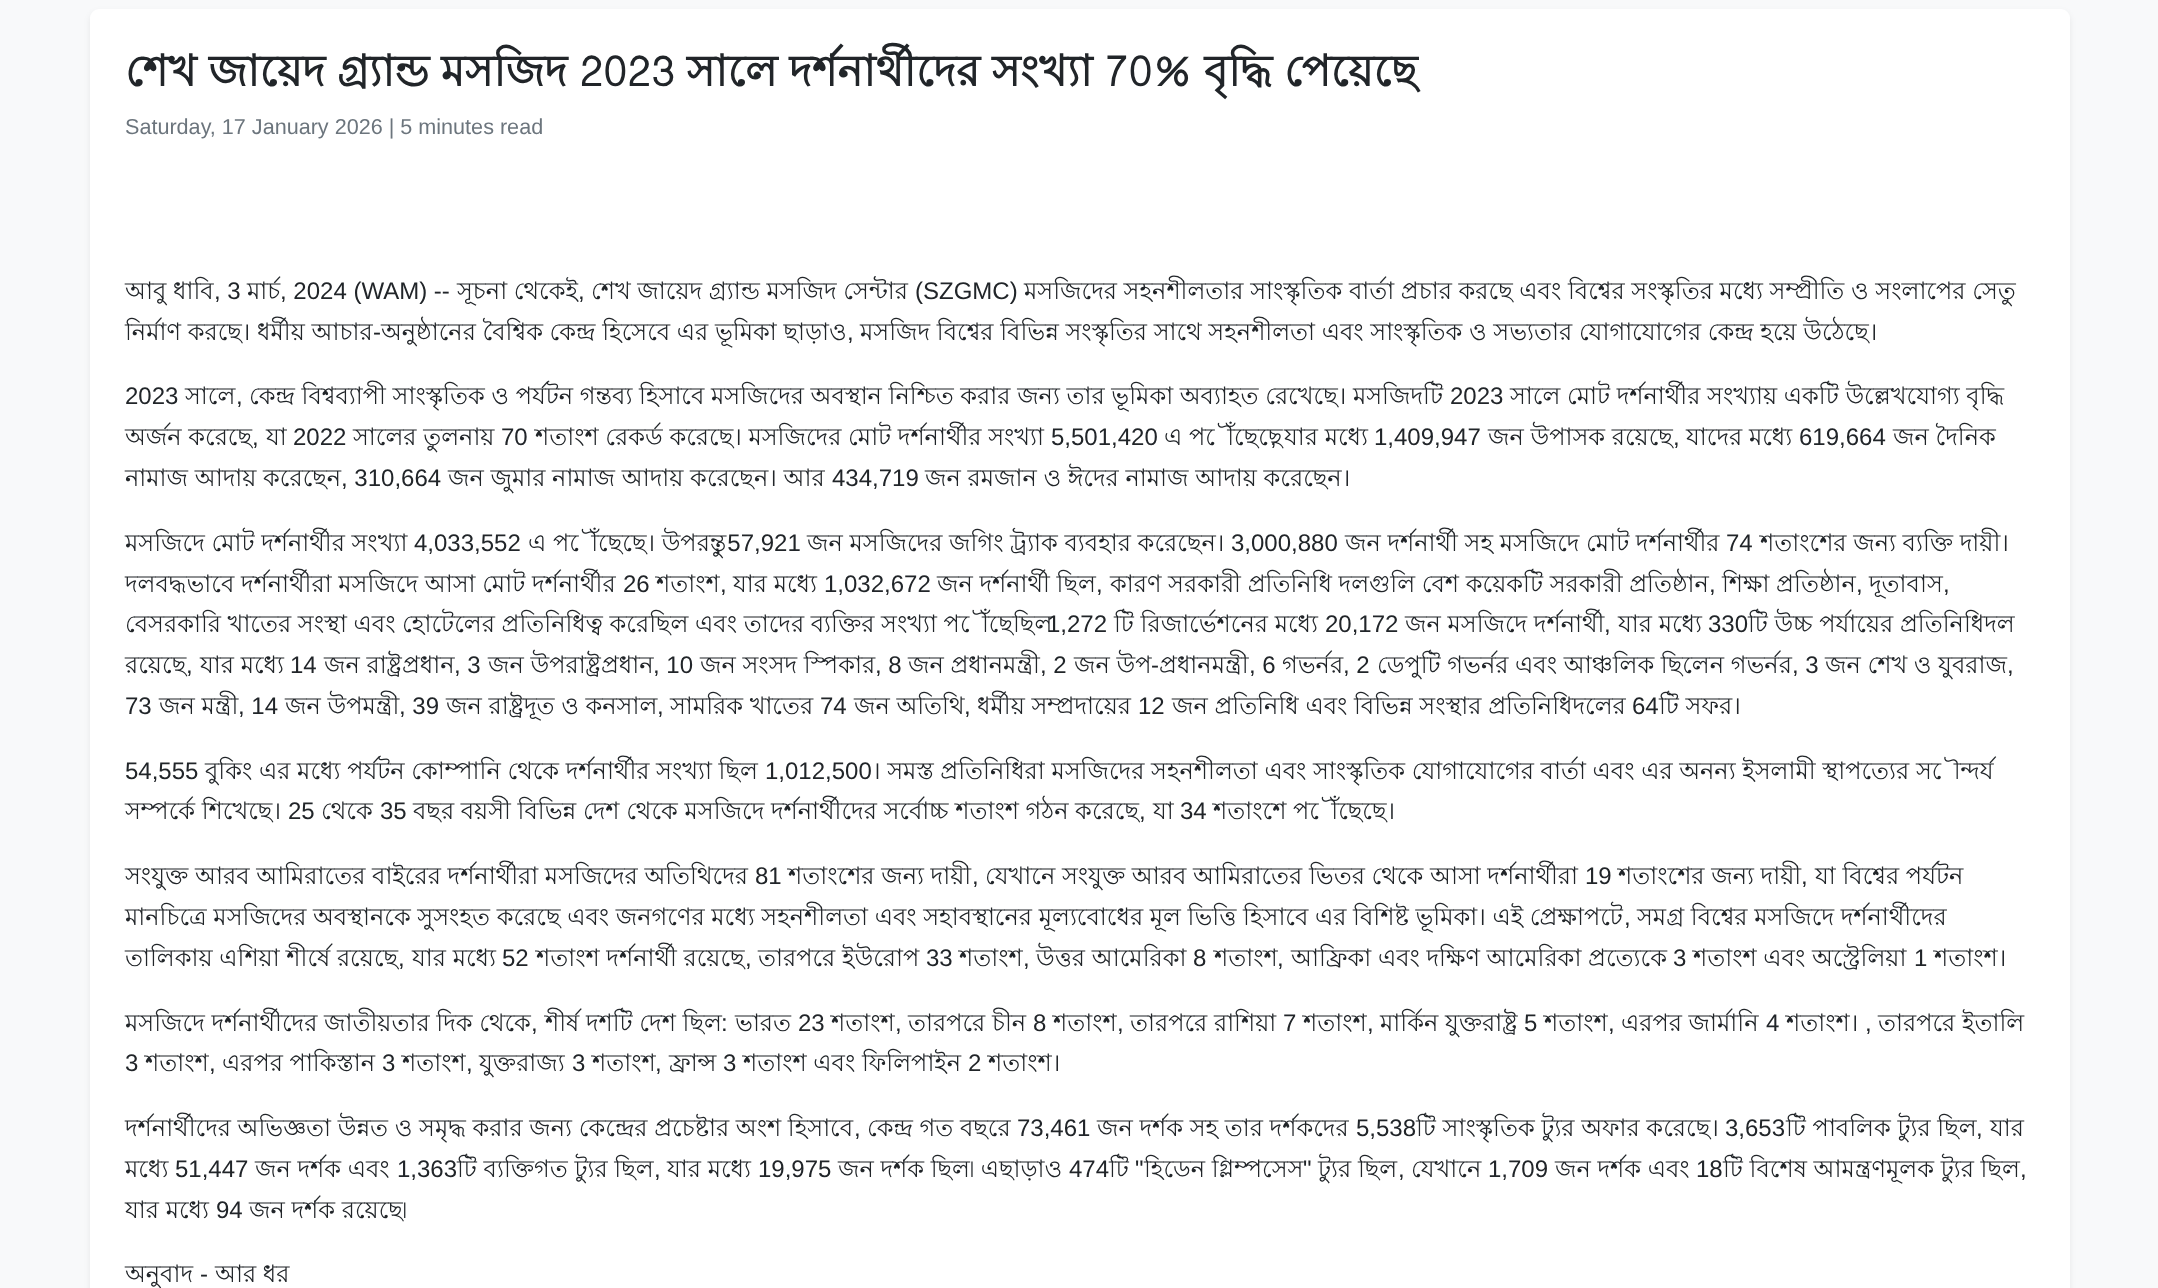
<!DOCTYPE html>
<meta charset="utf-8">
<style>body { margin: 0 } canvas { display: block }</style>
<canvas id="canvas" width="2158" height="1288"></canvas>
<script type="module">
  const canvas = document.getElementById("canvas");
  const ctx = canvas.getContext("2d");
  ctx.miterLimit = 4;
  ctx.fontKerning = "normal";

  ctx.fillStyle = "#f8f9fa";
  ctx.fillRect(0, 0, 2158, 1288);
  ctx.fillStyle = "rgba(0, 0, 0, 0.07)";
  ctx.filter = "blur(3px)";
  ctx.beginPath();
  ctx.roundRect(90, 12, 1980, 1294, 9);
  ctx.fill();
  ctx.filter = "none";
  ctx.fillStyle = "#ffffff";
  ctx.beginPath();
  ctx.roundRect(90, 9, 1980, 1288, 9);
  ctx.fill();
  ctx.font = "bold 43.2px Lohit Bengali";
  ctx.fillStyle = "#212529";
  ctx.fillText("শেখ জায়েদ গ্র্যান্ড মসজিদ 2023 সালে দর্শনার্থীদের সংখ্যা 70% বৃদ্ধি পেয়েছে", 125, 86);
  ctx.font = "21.6px Liberation Sans";
  ctx.fillStyle = "#6c757d";
  ctx.fillText("Saturday, 17 January 2026 | 5 minutes read", 125, 134);
  ctx.font = "24px Lohit Bengali";
  ctx.fillStyle = "#212529";
  ctx.fillText("আবু ধাবি", 125, 299);
  ctx.font = "24px Liberation Sans";
  ctx.fillText(", 3", 214, 299);
  ctx.font = "24px Lohit Bengali";
  ctx.fillText("মার্চ", 247, 299);
  ctx.font = "24px Liberation Sans";
  ctx.fillText(", 2024 (WAM) --", 280, 299);
  ctx.font = "24px Lohit Bengali";
  ctx.fillText("সূচনা থেকেই", 457, 299);
  ctx.font = "24px Liberation Sans";
  ctx.fillText(",", 578, 299);
  ctx.font = "24px Lohit Bengali";
  ctx.fillText("শেখ জায়েদ গ্র্যান্ড মসজিদ সেন্টার", 591, 299);
  ctx.font = "24px Liberation Sans";
  ctx.fillText("(SZGMC)", 915, 299);
  ctx.font = "24px Lohit Bengali";
  ctx.fillText("মসজিদের সহনশীলতার সাংস্কৃতিক বার্তা প্রচার করছে এবং বিশ্বের সংস্কৃতির মধ্যে সম্প্রীতি ও সংলাপের সেতু", 1024, 299);
  ctx.fillText("নির্মাণ করছে। ধর্মীয় আচার", 125, 340);
  ctx.font = "24px Liberation Sans";
  ctx.fillText("-", 373, 340);
  ctx.font = "24px Lohit Bengali";
  ctx.fillText("অনুষ্ঠানের বৈশ্বিক কেন্দ্র হিসেবে এর ভূমিকা ছাড়াও", 381, 340);
  ctx.fillText("মসজিদ বিশ্বের বিভিন্ন সংস্কৃতির সাথে সহনশীলতা এবং সাংস্কৃতিক ও সভ্যতার যোগাযোগের কেন্দ্র হয়ে উঠেছে।", 860, 340);
  ctx.font = "24px Liberation Sans";
  ctx.fillText(",", 847, 340);
  ctx.fillText("2023", 125, 404);
  ctx.font = "24px Lohit Bengali";
  ctx.fillText("সালে", 185, 404);
  ctx.font = "24px Liberation Sans";
  ctx.fillText(",", 236, 404);
  ctx.font = "24px Lohit Bengali";
  ctx.fillText("কেন্দ্র বিশ্বব্যাপী সাংস্কৃতিক ও পর্যটন গন্তব্য হিসাবে মসজিদের অবস্থান নিশ্চিত করার জন্য তার ভূমিকা অব্যাহত রেখেছে। মসজিদটি", 249, 404);
  ctx.font = "24px Liberation Sans";
  ctx.fillText("2023", 1450, 404);
  ctx.font = "24px Lohit Bengali";
  ctx.fillText("সালে মোট দর্শনার্থীর সংখ্যায় একটি উল্লেখযোগ্য বৃদ্ধি", 1510, 404);
  ctx.fillText("অর্জন করেছে", 125, 445);
  ctx.font = "24px Liberation Sans";
  ctx.fillText(",", 252, 445);
  ctx.font = "24px Lohit Bengali";
  ctx.fillText("যা", 266, 445);
  ctx.font = "24px Liberation Sans";
  ctx.fillText("2022", 293, 445);
  ctx.font = "24px Lohit Bengali";
  ctx.fillText("সালের তুলনায়", 353, 445);
  ctx.font = "24px Liberation Sans";
  ctx.fillText("70", 501, 445);
  ctx.font = "24px Lohit Bengali";
  ctx.fillText("শতাংশ রেকর্ড করেছে। মসজিদের মোট দর্শনার্থীর সংখ্যা", 535, 445);
  ctx.font = "24px Liberation Sans";
  ctx.fillText("5,501,420", 1051, 445);
  ctx.font = "24px Lohit Bengali";
  ctx.fillText("এ পৌঁছেছে", 1164, 445);
  ctx.font = "24px Liberation Sans";
  ctx.fillText(",", 1270, 445);
  ctx.font = "24px Lohit Bengali";
  ctx.fillText("যার মধ্যে", 1284, 445);
  ctx.font = "24px Liberation Sans";
  ctx.fillText("1,409,947", 1374, 445);
  ctx.font = "24px Lohit Bengali";
  ctx.fillText("জন উপাসক রয়েছে", 1488, 445);
  ctx.font = "24px Liberation Sans";
  ctx.fillText(",", 1673, 445);
  ctx.font = "24px Lohit Bengali";
  ctx.fillText("যাদের মধ্যে", 1686, 445);
  ctx.font = "24px Liberation Sans";
  ctx.fillText("619,664", 1799, 445);
  ctx.font = "24px Lohit Bengali";
  ctx.fillText("জন দৈনিক", 1893, 445);
  ctx.fillText("নামাজ আদায় করেছেন", 125, 486);
  ctx.font = "24px Liberation Sans";
  ctx.fillText(", 310,664", 341, 486);
  ctx.font = "24px Lohit Bengali";
  ctx.fillText("জন জুমার নামাজ আদায় করেছেন। আর", 448, 486);
  ctx.font = "24px Liberation Sans";
  ctx.fillText("434,719", 832, 486);
  ctx.font = "24px Lohit Bengali";
  ctx.fillText("জন রমজান ও ঈদের নামাজ আদায় করেছেন।", 925, 486);
  ctx.fillText("মসজিদে মোট দর্শনার্থীর সংখ্যা", 125, 551);
  ctx.font = "24px Liberation Sans";
  ctx.fillText("4,033,552", 414, 551);
  ctx.font = "24px Lohit Bengali";
  ctx.fillText("এ পৌঁছেছে। উপরন্তু", 528, 551);
  ctx.font = "24px Liberation Sans";
  ctx.fillText(", 57,921", 714, 551);
  ctx.font = "24px Lohit Bengali";
  ctx.fillText("জন মসজিদের জগিং ট্র্যাক ব্যবহার করেছেন।", 807, 551);
  ctx.font = "24px Liberation Sans";
  ctx.fillText("3,000,880", 1231, 551);
  ctx.font = "24px Lohit Bengali";
  ctx.fillText("জন দর্শনার্থী সহ মসজিদে মোট দর্শনার্থীর", 1345, 551);
  ctx.font = "24px Liberation Sans";
  ctx.fillText("74", 1726, 551);
  ctx.font = "24px Lohit Bengali";
  ctx.fillText("শতাংশের জন্য ব্যক্তি দায়ী।", 1760, 551);
  ctx.fillText("দলবদ্ধভাবে দর্শনার্থীরা মসজিদে আসা মোট দর্শনার্থীর", 125, 592);
  ctx.font = "24px Liberation Sans";
  ctx.fillText("26", 623, 592);
  ctx.font = "24px Lohit Bengali";
  ctx.fillText("শতাংশ", 656, 592);
  ctx.font = "24px Liberation Sans";
  ctx.fillText(",", 720, 592);
  ctx.font = "24px Lohit Bengali";
  ctx.fillText("যার মধ্যে", 733, 592);
  ctx.font = "24px Liberation Sans";
  ctx.fillText("1,032,672", 824, 592);
  ctx.font = "24px Lohit Bengali";
  ctx.fillText("জন দর্শনার্থী ছিল", 937, 592);
  ctx.font = "24px Liberation Sans";
  ctx.fillText(",", 1096, 592);
  ctx.font = "24px Lohit Bengali";
  ctx.fillText("কারণ সরকারী প্রতিনিধি দলগুলি বেশ কয়েকটি সরকারী প্রতিষ্ঠান", 1110, 592);
  ctx.font = "24px Liberation Sans";
  ctx.fillText(",", 1709, 592);
  ctx.font = "24px Lohit Bengali";
  ctx.fillText("শিক্ষা প্রতিষ্ঠান", 1722, 592);
  ctx.font = "24px Liberation Sans";
  ctx.fillText(",", 1856, 592);
  ctx.font = "24px Lohit Bengali";
  ctx.fillText("দূতাবাস", 1869, 592);
  ctx.font = "24px Liberation Sans";
  ctx.fillText(",", 1943, 592);
  ctx.font = "24px Lohit Bengali";
  ctx.fillText("বেসরকারি খাতের সংস্থা এবং হোটেলের প্রতিনিধিত্ব করেছিল এবং তাদের ব্যক্তির সংখ্যা পৌঁছেছিল", 125, 632);
  ctx.font = "24px Liberation Sans";
  ctx.fillText("1,272", 1047, 632);
  ctx.font = "24px Lohit Bengali";
  ctx.fillText("টি রিজার্ভেশনের মধ্যে", 1114, 632);
  ctx.font = "24px Liberation Sans";
  ctx.fillText("20,172", 1325, 632);
  ctx.font = "24px Lohit Bengali";
  ctx.fillText("জন মসজিদে দর্শনার্থী", 1405, 632);
  ctx.font = "24px Liberation Sans";
  ctx.fillText(",", 1604, 632);
  ctx.font = "24px Lohit Bengali";
  ctx.fillText("যার মধ্যে", 1618, 632);
  ctx.font = "24px Liberation Sans";
  ctx.fillText("330", 1708, 632);
  ctx.font = "24px Lohit Bengali";
  ctx.fillText("টি উচ্চ পর্যায়ের প্রতিনিধিদল", 1748, 632);
  ctx.fillText("রয়েছে", 125, 673);
  ctx.fillText("যার মধ্যে", 200, 673);
  ctx.font = "24px Liberation Sans";
  ctx.fillText("14", 290, 673);
  ctx.font = "24px Lohit Bengali";
  ctx.fillText("জন রাষ্ট্রপ্রধান", 324, 673);
  ctx.font = "24px Liberation Sans";
  ctx.fillText(", 3", 454, 673);
  ctx.font = "24px Lohit Bengali";
  ctx.fillText("জন উপরাষ্ট্রপ্রধান", 488, 673);
  ctx.font = "24px Liberation Sans";
  ctx.fillText(", 10", 653, 673);
  ctx.font = "24px Lohit Bengali";
  ctx.fillText("জন সংসদ স্পিকার", 700, 673);
  ctx.font = "24px Liberation Sans";
  ctx.fillText(", 8", 875, 673);
  ctx.font = "24px Lohit Bengali";
  ctx.fillText("জন প্রধানমন্ত্রী", 908, 673);
  ctx.font = "24px Liberation Sans";
  ctx.fillText(", 2", 1040, 673);
  ctx.font = "24px Lohit Bengali";
  ctx.fillText("জন উপ", 1074, 673);
  ctx.font = "24px Liberation Sans";
  ctx.fillText("-", 1151, 673);
  ctx.font = "24px Lohit Bengali";
  ctx.fillText("প্রধানমন্ত্রী", 1159, 673);
  ctx.font = "24px Liberation Sans";
  ctx.fillText(", 6", 1249, 673);
  ctx.font = "24px Lohit Bengali";
  ctx.fillText("গভর্নর", 1282, 673);
  ctx.font = "24px Liberation Sans";
  ctx.fillText(", 2", 1343, 673);
  ctx.font = "24px Lohit Bengali";
  ctx.fillText("ডেপুটি গভর্নর এবং আঞ্চলিক ছিলেন গভর্নর", 1377, 673);
  ctx.font = "24px Liberation Sans";
  ctx.fillText(", 3", 1792, 673);
  ctx.font = "24px Lohit Bengali";
  ctx.fillText("জন শেখ ও যুবরাজ", 1825, 673);
  ctx.font = "24px Liberation Sans";
  ctx.fillText(",", 186, 673);
  ctx.fillText(",", 2007, 673);
  ctx.fillText("73", 125, 714);
  ctx.font = "24px Lohit Bengali";
  ctx.fillText("জন মন্ত্রী", 159, 714);
  ctx.font = "24px Liberation Sans";
  ctx.fillText(", 14", 238, 714);
  ctx.font = "24px Lohit Bengali";
  ctx.fillText("জন উপমন্ত্রী", 285, 714);
  ctx.font = "24px Liberation Sans";
  ctx.fillText(", 39", 399, 714);
  ctx.font = "24px Lohit Bengali";
  ctx.fillText("জন রাষ্ট্রদূত ও কনসাল", 446, 714);
  ctx.font = "24px Liberation Sans";
  ctx.fillText(",", 657, 714);
  ctx.font = "24px Lohit Bengali";
  ctx.fillText("সামরিক খাতের", 670, 714);
  ctx.font = "24px Liberation Sans";
  ctx.fillText("74", 820, 714);
  ctx.font = "24px Lohit Bengali";
  ctx.fillText("জন অতিথি", 854, 714);
  ctx.font = "24px Liberation Sans";
  ctx.fillText(",", 964, 714);
  ctx.font = "24px Lohit Bengali";
  ctx.fillText("ধর্মীয় সম্প্রদায়ের", 977, 714);
  ctx.font = "24px Liberation Sans";
  ctx.fillText("12", 1138, 714);
  ctx.font = "24px Lohit Bengali";
  ctx.fillText("জন প্রতিনিধি এবং বিভিন্ন সংস্থার প্রতিনিধিদলের", 1172, 714);
  ctx.font = "24px Liberation Sans";
  ctx.fillText("64", 1632, 714);
  ctx.font = "24px Lohit Bengali";
  ctx.fillText("টি সফর।", 1659, 714);
  ctx.font = "24px Liberation Sans";
  ctx.fillText("54,555", 125, 779);
  ctx.font = "24px Lohit Bengali";
  ctx.fillText("বুকিং এর মধ্যে পর্যটন কোম্পানি থেকে দর্শনার্থীর সংখ্যা ছিল", 205, 779);
  ctx.font = "24px Liberation Sans";
  ctx.fillText("1,012,500", 765, 779);
  ctx.font = "24px Lohit Bengali";
  ctx.fillText("। সমস্ত প্রতিনিধিরা মসজিদের সহনশীলতা এবং সাংস্কৃতিক যোগাযোগের বার্তা এবং এর অনন্য ইসলামী স্থাপত্যের সৌন্দর্য", 872, 779);
  ctx.fillText("সম্পর্কে শিখেছে।", 125, 819);
  ctx.font = "24px Liberation Sans";
  ctx.fillText("25", 288, 819);
  ctx.font = "24px Lohit Bengali";
  ctx.fillText("থেকে", 321, 819);
  ctx.font = "24px Liberation Sans";
  ctx.fillText("35", 380, 819);
  ctx.font = "24px Lohit Bengali";
  ctx.fillText("বছর বয়সী বিভিন্ন দেশ থেকে মসজিদে দর্শনার্থীদের সর্বোচ্চ শতাংশ গঠন করেছে", 413, 819);
  ctx.font = "24px Liberation Sans";
  ctx.fillText(",", 1139, 819);
  ctx.font = "24px Lohit Bengali";
  ctx.fillText("যা", 1153, 819);
  ctx.font = "24px Liberation Sans";
  ctx.fillText("34", 1180, 819);
  ctx.font = "24px Lohit Bengali";
  ctx.fillText("শতাংশে পৌঁছেছে।", 1213, 819);
  ctx.fillText("সংযুক্ত আরব আমিরাতের বাইরের দর্শনার্থীরা মসজিদের অতিথিদের", 125, 884);
  ctx.font = "24px Liberation Sans";
  ctx.fillText("81", 755, 884);
  ctx.font = "24px Lohit Bengali";
  ctx.fillText("শতাংশের জন্য দায়ী", 788, 884);
  ctx.font = "24px Liberation Sans";
  ctx.fillText(",", 972, 884);
  ctx.font = "24px Lohit Bengali";
  ctx.fillText("যেখানে সংযুক্ত আরব আমিরাতের ভিতর থেকে আসা দর্শনার্থীরা", 985, 884);
  ctx.font = "24px Liberation Sans";
  ctx.fillText("19", 1585, 884);
  ctx.font = "24px Lohit Bengali";
  ctx.fillText("শতাংশের জন্য দায়ী", 1618, 884);
  ctx.font = "24px Liberation Sans";
  ctx.fillText(",", 1801, 884);
  ctx.font = "24px Lohit Bengali";
  ctx.fillText("যা বিশ্বের পর্যটন", 1815, 884);
  ctx.fillText("মানচিত্রে মসজিদের অবস্থানকে সুসংহত করেছে এবং জনগণের মধ্যে সহনশীলতা এবং সহাবস্থানের মূল্যবোধের মূল ভিত্তি হিসাবে এর বিশিষ্ট ভূমিকা। এই প্রেক্ষাপটে", 125, 925);
  ctx.font = "24px Liberation Sans";
  ctx.fillText(",", 1624, 925);
  ctx.font = "24px Lohit Bengali";
  ctx.fillText("সমগ্র বিশ্বের মসজিদে দর্শনার্থীদের", 1637, 925);
  ctx.fillText("তালিকায় এশিয়া শীর্ষে রয়েছে", 125, 966);
  ctx.font = "24px Liberation Sans";
  ctx.fillText(",", 398, 966);
  ctx.font = "24px Lohit Bengali";
  ctx.fillText("যার মধ্যে", 412, 966);
  ctx.font = "24px Liberation Sans";
  ctx.fillText("52", 502, 966);
  ctx.font = "24px Lohit Bengali";
  ctx.fillText("শতাংশ দর্শনার্থী রয়েছে", 536, 966);
  ctx.font = "24px Liberation Sans";
  ctx.fillText(",", 745, 966);
  ctx.font = "24px Lohit Bengali";
  ctx.fillText("তারপরে ইউরোপ", 758, 966);
  ctx.font = "24px Liberation Sans";
  ctx.fillText("33", 926, 966);
  ctx.font = "24px Lohit Bengali";
  ctx.fillText("শতাংশ", 959, 966);
  ctx.font = "24px Liberation Sans";
  ctx.fillText(",", 1023, 966);
  ctx.font = "24px Lohit Bengali";
  ctx.fillText("উত্তর আমেরিকা", 1036, 966);
  ctx.font = "24px Liberation Sans";
  ctx.fillText("8", 1193, 966);
  ctx.font = "24px Lohit Bengali";
  ctx.fillText("শতাংশ", 1214, 966);
  ctx.font = "24px Liberation Sans";
  ctx.fillText(",", 1277, 966);
  ctx.font = "24px Lohit Bengali";
  ctx.fillText("আফ্রিকা এবং দক্ষিণ আমেরিকা প্রত্যেকে", 1291, 966);
  ctx.font = "24px Liberation Sans";
  ctx.fillText("3", 1673, 966);
  ctx.font = "24px Lohit Bengali";
  ctx.fillText("শতাংশ এবং অস্ট্রেলিয়া", 1693, 966);
  ctx.font = "24px Liberation Sans";
  ctx.fillText("1", 1914, 966);
  ctx.font = "24px Lohit Bengali";
  ctx.fillText("শতাংশ।", 1934, 966);
  ctx.fillText("মসজিদে দর্শনার্থীদের জাতীয়তার দিক থেকে", 125, 1031);
  ctx.font = "24px Liberation Sans";
  ctx.fillText(",", 531, 1031);
  ctx.font = "24px Lohit Bengali";
  ctx.fillText("শীর্ষ দশটি দেশ ছিল", 545, 1031);
  ctx.font = "24px Liberation Sans";
  ctx.fillText(":", 721, 1031);
  ctx.font = "24px Lohit Bengali";
  ctx.fillText("ভারত", 735, 1031);
  ctx.font = "24px Liberation Sans";
  ctx.fillText("23", 798, 1031);
  ctx.font = "24px Lohit Bengali";
  ctx.fillText("শতাংশ", 831, 1031);
  ctx.fillText("তারপরে চীন", 908, 1031);
  ctx.font = "24px Liberation Sans";
  ctx.fillText("8", 1033, 1031);
  ctx.font = "24px Lohit Bengali";
  ctx.fillText("শতাংশ", 1053, 1031);
  ctx.fillText("তারপরে রাশিয়া", 1130, 1031);
  ctx.font = "24px Liberation Sans";
  ctx.fillText("7", 1283, 1031);
  ctx.font = "24px Lohit Bengali";
  ctx.fillText("শতাংশ", 1303, 1031);
  ctx.fillText("মার্কিন যুক্তরাষ্ট্র", 1380, 1031);
  ctx.font = "24px Liberation Sans";
  ctx.fillText("5", 1524, 1031);
  ctx.font = "24px Lohit Bengali";
  ctx.fillText("শতাংশ", 1544, 1031);
  ctx.fillText("এরপর জার্মানি", 1621, 1031);
  ctx.font = "24px Liberation Sans";
  ctx.fillText("4", 1766, 1031);
  ctx.font = "24px Lohit Bengali";
  ctx.fillText("শতাংশ।", 1786, 1031);
  ctx.fillText("তারপরে ইতালি", 1878, 1031);
  ctx.font = "24px Liberation Sans";
  ctx.fillText(",", 895, 1031);
  ctx.fillText(",", 1117, 1031);
  ctx.fillText(",", 1367, 1031);
  ctx.fillText(",", 1608, 1031);
  ctx.fillText(",", 1865, 1031);
  ctx.fillText("3", 125, 1071);
  ctx.font = "24px Lohit Bengali";
  ctx.fillText("শতাংশ", 145, 1071);
  ctx.font = "24px Liberation Sans";
  ctx.fillText(",", 209, 1071);
  ctx.font = "24px Lohit Bengali";
  ctx.fillText("এরপর পাকিস্তান", 222, 1071);
  ctx.font = "24px Liberation Sans";
  ctx.fillText("3", 382, 1071);
  ctx.font = "24px Lohit Bengali";
  ctx.fillText("শতাংশ", 402, 1071);
  ctx.font = "24px Liberation Sans";
  ctx.fillText(",", 466, 1071);
  ctx.font = "24px Lohit Bengali";
  ctx.fillText("যুক্তরাজ্য", 479, 1071);
  ctx.font = "24px Liberation Sans";
  ctx.fillText("3", 572, 1071);
  ctx.font = "24px Lohit Bengali";
  ctx.fillText("শতাংশ", 592, 1071);
  ctx.font = "24px Liberation Sans";
  ctx.fillText(",", 655, 1071);
  ctx.font = "24px Lohit Bengali";
  ctx.fillText("ফ্রান্স", 669, 1071);
  ctx.font = "24px Liberation Sans";
  ctx.fillText("3", 723, 1071);
  ctx.font = "24px Lohit Bengali";
  ctx.fillText("শতাংশ এবং ফিলিপাইন", 743, 1071);
  ctx.font = "24px Liberation Sans";
  ctx.fillText("2", 968, 1071);
  ctx.font = "24px Lohit Bengali";
  ctx.fillText("শতাংশ।", 988, 1071);
  ctx.fillText("দর্শনার্থীদের অভিজ্ঞতা উন্নত ও সমৃদ্ধ করার জন্য কেন্দ্রের প্রচেষ্টার অংশ হিসাবে", 125, 1136);
  ctx.font = "24px Liberation Sans";
  ctx.fillText(",", 854, 1136);
  ctx.font = "24px Lohit Bengali";
  ctx.fillText("কেন্দ্র গত বছরে", 867, 1136);
  ctx.font = "24px Liberation Sans";
  ctx.fillText("73,461", 1017, 1136);
  ctx.font = "24px Lohit Bengali";
  ctx.fillText("জন দর্শক সহ তার দর্শকদের", 1097, 1136);
  ctx.font = "24px Liberation Sans";
  ctx.fillText("5,538", 1356, 1136);
  ctx.font = "24px Lohit Bengali";
  ctx.fillText("টি সাংস্কৃতিক ট্যুর অফার করেছে।", 1416, 1136);
  ctx.font = "24px Liberation Sans";
  ctx.fillText("3,653", 1725, 1136);
  ctx.font = "24px Lohit Bengali";
  ctx.fillText("টি পাবলিক ট্যুর ছিল", 1786, 1136);
  ctx.font = "24px Liberation Sans";
  ctx.fillText(",", 1976, 1136);
  ctx.font = "24px Lohit Bengali";
  ctx.fillText("যার", 1990, 1136);
  ctx.fillText("মধ্যে", 125, 1177);
  ctx.font = "24px Liberation Sans";
  ctx.fillText("51,447", 175, 1177);
  ctx.font = "24px Lohit Bengali";
  ctx.fillText("জন দর্শক এবং", 255, 1177);
  ctx.font = "24px Liberation Sans";
  ctx.fillText("1,363", 397, 1177);
  ctx.font = "24px Lohit Bengali";
  ctx.fillText("টি ব্যক্তিগত ট্যুর ছিল", 457, 1177);
  ctx.fillText("যার মধ্যে", 667, 1177);
  ctx.font = "24px Liberation Sans";
  ctx.fillText("19,975", 758, 1177);
  ctx.font = "24px Lohit Bengali";
  ctx.fillText("জন দর্শক ছিল৷ এছাড়াও", 838, 1177);
  ctx.font = "24px Liberation Sans";
  ctx.fillText("474", 1069, 1177);
  ctx.font = "24px Lohit Bengali";
  ctx.fillText("টি", 1109, 1177);
  ctx.font = "24px Liberation Sans";
  ctx.fillText("\"", 1135, 1177);
  ctx.font = "24px Lohit Bengali";
  ctx.fillText("হিডেন গ্লিম্পসেস", 1144, 1177);
  ctx.font = "24px Liberation Sans";
  ctx.fillText("\"", 1303, 1177);
  ctx.font = "24px Lohit Bengali";
  ctx.fillText("ট্যুর ছিল", 1318, 1177);
  ctx.fillText("যেখানে", 1411, 1177);
  ctx.fillText("জন দর্শক এবং", 1555, 1177);
  ctx.fillText("টি বিশেষ আমন্ত্রণমূলক ট্যুর ছিল", 1723, 1177);
  ctx.font = "24px Liberation Sans";
  ctx.fillText(",", 654, 1177);
  ctx.fillText(",", 1398, 1177);
  ctx.fillText("1,709", 1488, 1177);
  ctx.fillText("18", 1696, 1177);
  ctx.fillText(",", 2020, 1177);
  ctx.font = "24px Lohit Bengali";
  ctx.fillText("যার মধ্যে", 125, 1218);
  ctx.font = "24px Liberation Sans";
  ctx.fillText("94", 216, 1218);
  ctx.font = "24px Lohit Bengali";
  ctx.fillText("জন দর্শক রয়েছে৷", 249, 1218);
  ctx.fillText("অনুবাদ", 125, 1282);
  ctx.font = "24px Liberation Sans";
  ctx.fillText("-", 200, 1282);
  ctx.font = "24px Lohit Bengali";
  ctx.fillText("আর ধর", 215, 1282);
</script>
